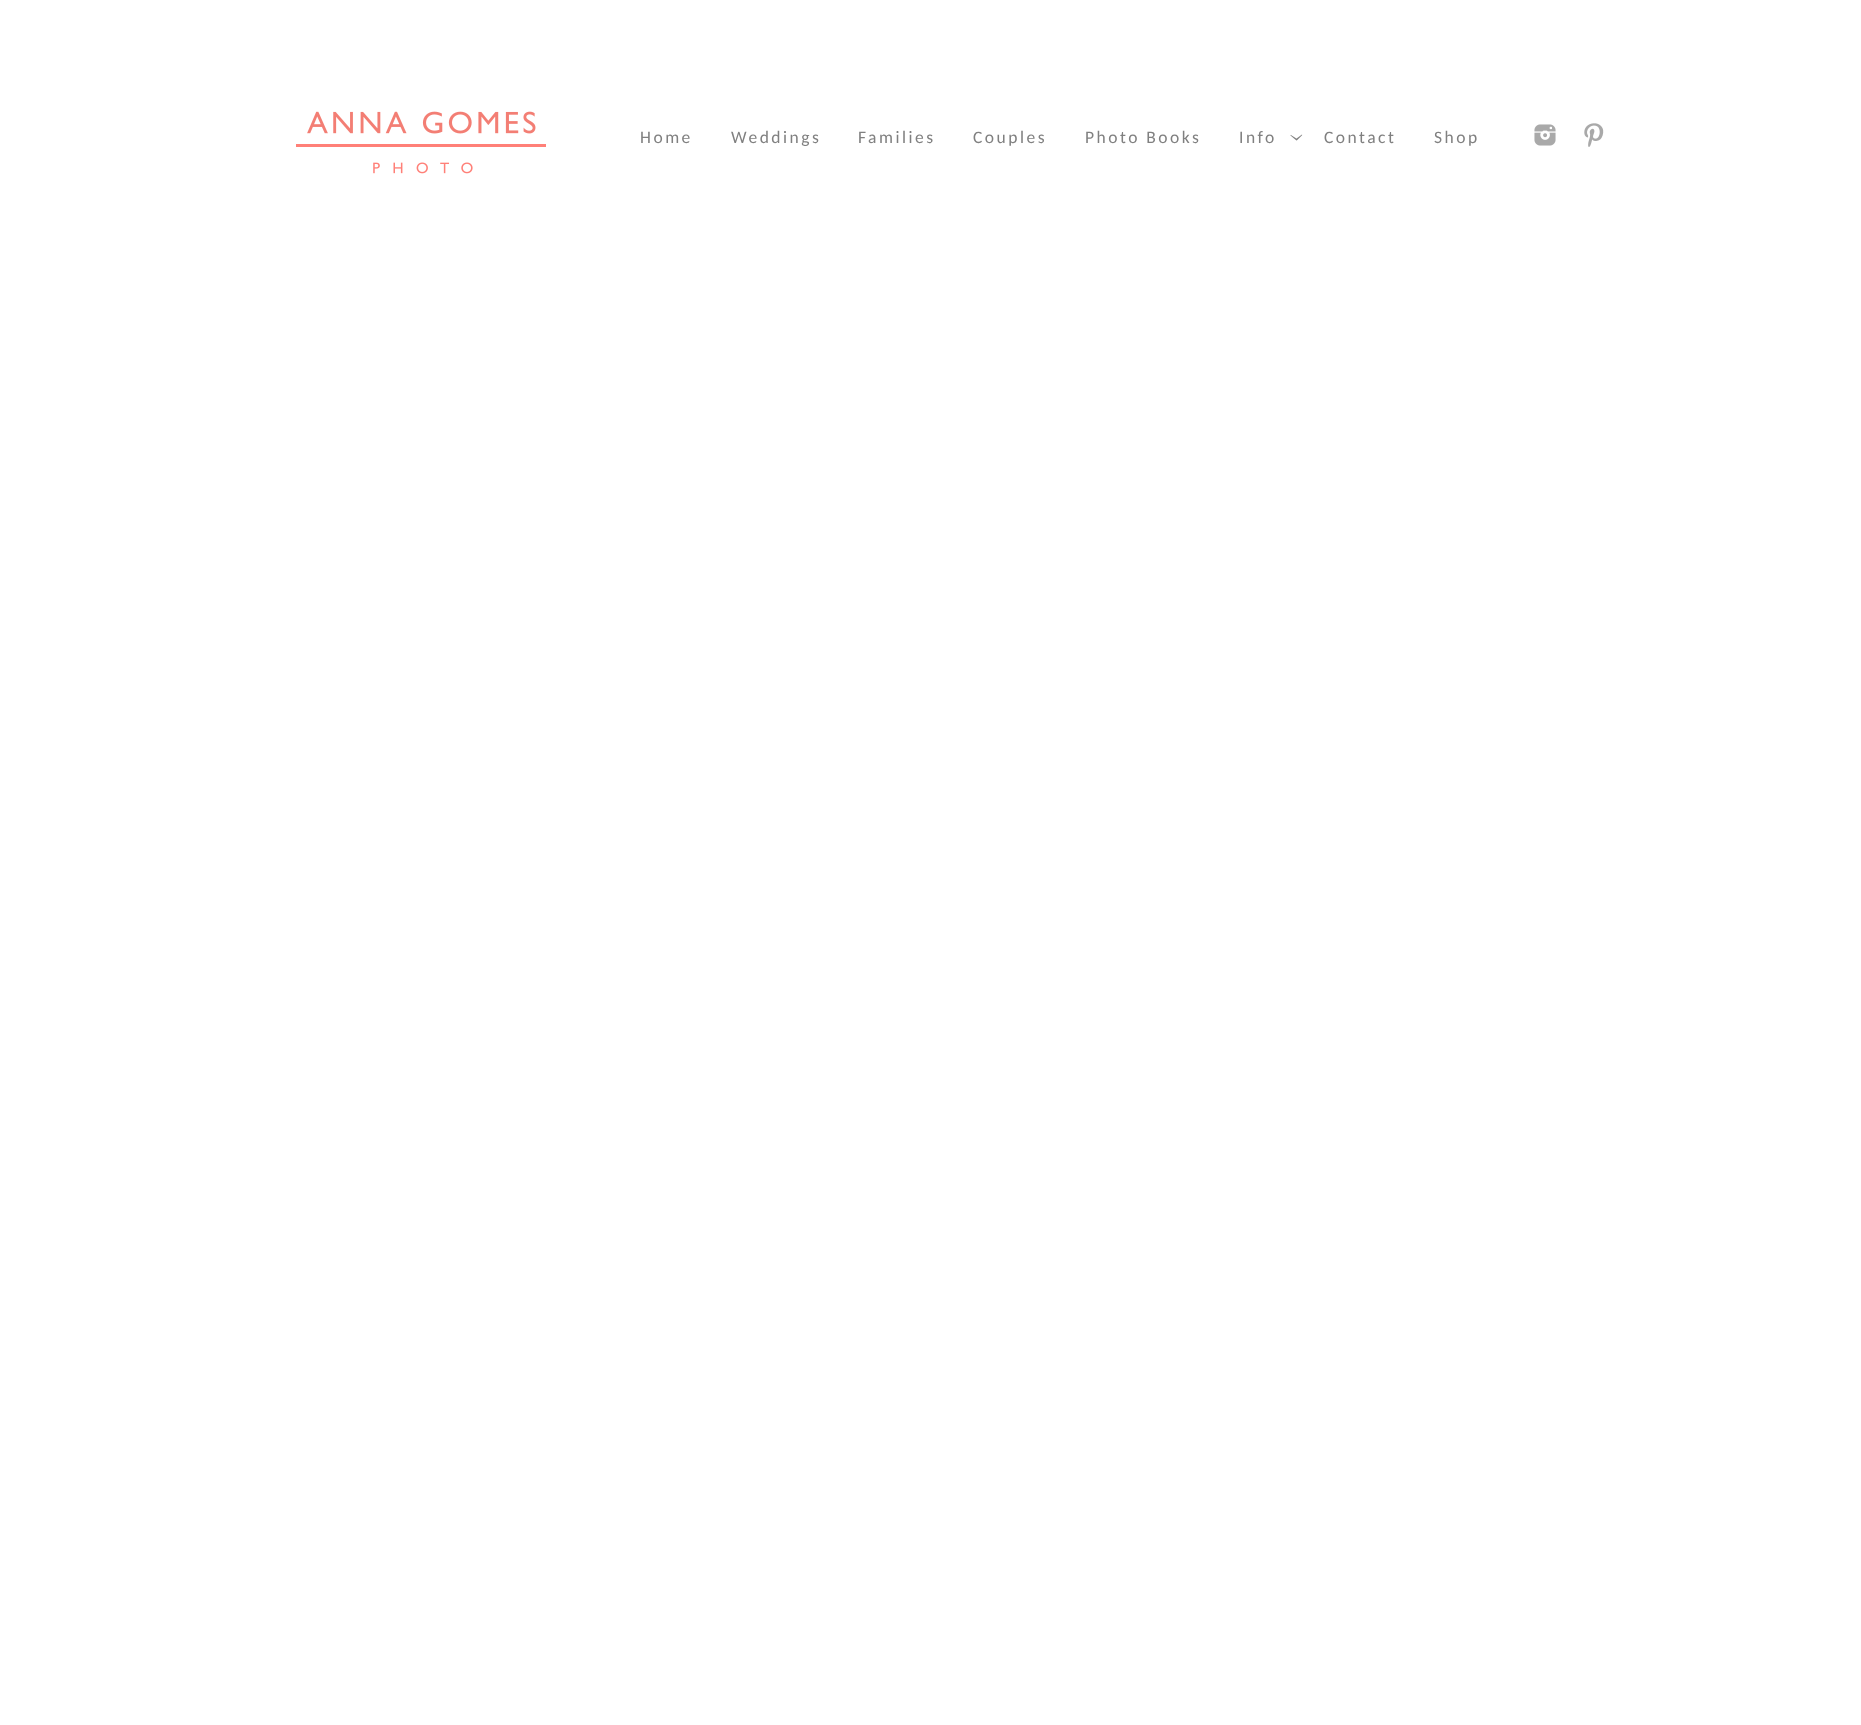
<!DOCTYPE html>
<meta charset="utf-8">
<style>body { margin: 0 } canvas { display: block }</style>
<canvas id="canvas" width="1861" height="1725"></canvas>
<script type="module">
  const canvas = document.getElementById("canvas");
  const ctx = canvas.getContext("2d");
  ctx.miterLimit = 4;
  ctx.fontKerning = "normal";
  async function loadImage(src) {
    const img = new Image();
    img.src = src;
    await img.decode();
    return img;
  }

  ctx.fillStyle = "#ffffff";
  ctx.fillRect(0, 0, 1861, 1725);
  ctx.drawImage(await loadImage("img1.png"), 296, 111, 250, 63);
  ctx.letterSpacing = "2.5px";
  ctx.font = "17.5px Carlito";
  ctx.fillStyle = "#808080";
  ctx.fillText("Home", 640, 143);
  ctx.fillText("Weddings", 731, 143);
  ctx.fillText("Families", 858, 143);
  ctx.fillText("Couples", 973, 143);
  ctx.fillText("Photo Books", 1085, 143);
  ctx.fillText("Info", 1239, 143);
  ctx.drawImage(await loadImage("img2.png"), 1290, 134, 13, 7);
  ctx.fillText("Contact", 1324, 143);
  ctx.fillText("Shop", 1434, 143);
  ctx.drawImage(await loadImage("img3.png"), 1534, 124, 22, 22);
  ctx.drawImage(await loadImage("img4.png"), 1584, 123, 20, 24);
</script>
